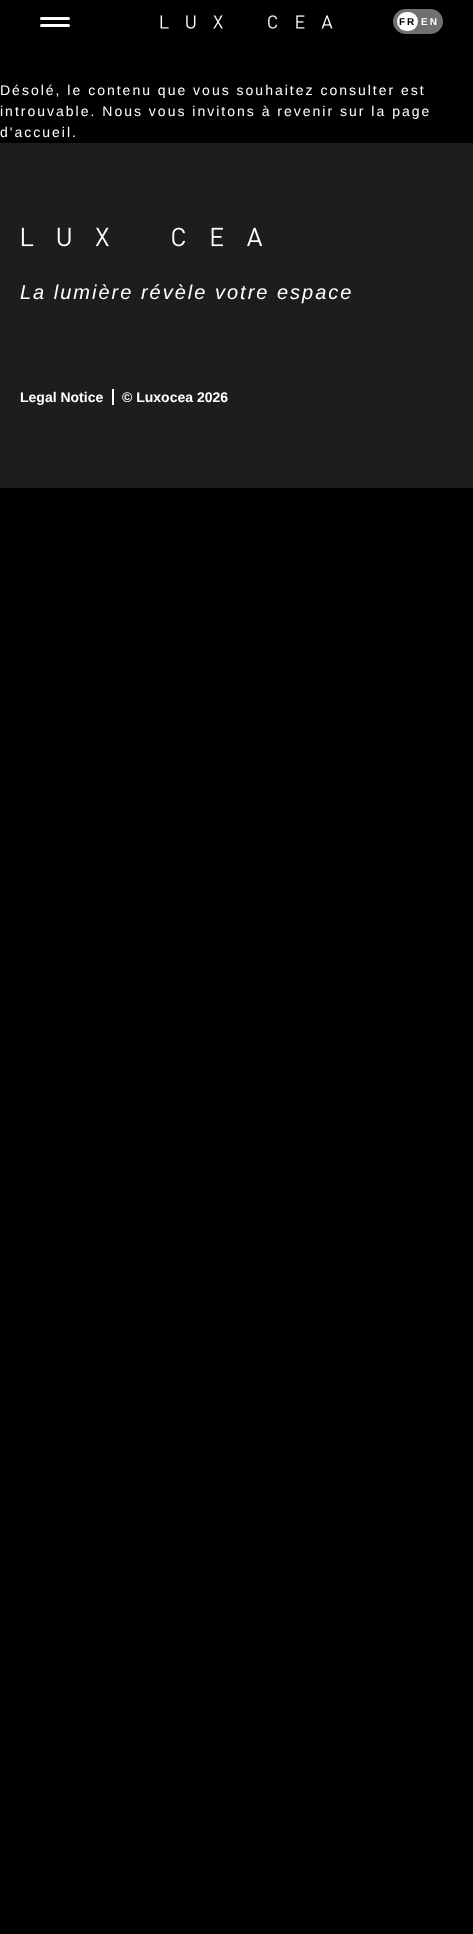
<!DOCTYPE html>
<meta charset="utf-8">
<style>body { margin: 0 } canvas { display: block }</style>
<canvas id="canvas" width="473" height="1934"></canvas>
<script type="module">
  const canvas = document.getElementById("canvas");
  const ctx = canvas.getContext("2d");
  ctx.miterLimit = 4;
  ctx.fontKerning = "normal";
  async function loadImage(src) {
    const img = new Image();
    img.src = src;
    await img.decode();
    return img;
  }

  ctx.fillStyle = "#000000";
  ctx.fillRect(0, 0, 473, 1934);
  ctx.fillStyle = "#ffffff";
  ctx.beginPath();
  ctx.roundRect(40, 17, 30, 3, 1.5);
  ctx.fill();
  ctx.beginPath();
  ctx.roundRect(40, 24, 30, 3, 1.5);
  ctx.fill();
  ctx.drawImage(await loadImage("img1.png"), 160, 15, 173, 14);
  ctx.fillStyle = "#70706e";
  ctx.beginPath();
  ctx.roundRect(393, 9, 50, 25, 12.5);
  ctx.fill();
  ctx.fillStyle = "#ffffff";
  ctx.beginPath();
  ctx.roundRect(397, 12, 21, 19, 9.5);
  ctx.fill();
  ctx.letterSpacing = "2px";
  ctx.font = "bold 10px Liberation Sans";
  ctx.fillStyle = "#000000";
  ctx.fillText("FR", 399, 25);
  ctx.fillStyle = "#ffffff";
  ctx.fillText("EN", 421, 25);
  ctx.font = "14px Liberation Sans";
  ctx.fillText("Désolé, le contenu que vous souhaitez consulter est", 0, 95);
  ctx.fillText("introuvable. Nous vous invitons à revenir sur la page", 0, 116);
  ctx.fillText("d'accueil.", 0, 137);
  ctx.fillStyle = "#1d1d1b";
  ctx.fillRect(0, 143, 473, 345);
  ctx.drawImage(await loadImage("img2.png"), 21, 227, 242, 20);
  ctx.font = "italic 20px Liberation Sans";
  ctx.fillStyle = "#ffffff";
  ctx.fillText("La lumière révèle votre espace", 20, 299);
  ctx.letterSpacing = "0px";
  ctx.font = "bold 14px Liberation Sans";
  ctx.fillText("Legal Notice", 20, 402);
  ctx.fillRect(112, 389, 2, 16);
  ctx.fillText("© Luxocea 2026", 122, 402);
</script>
